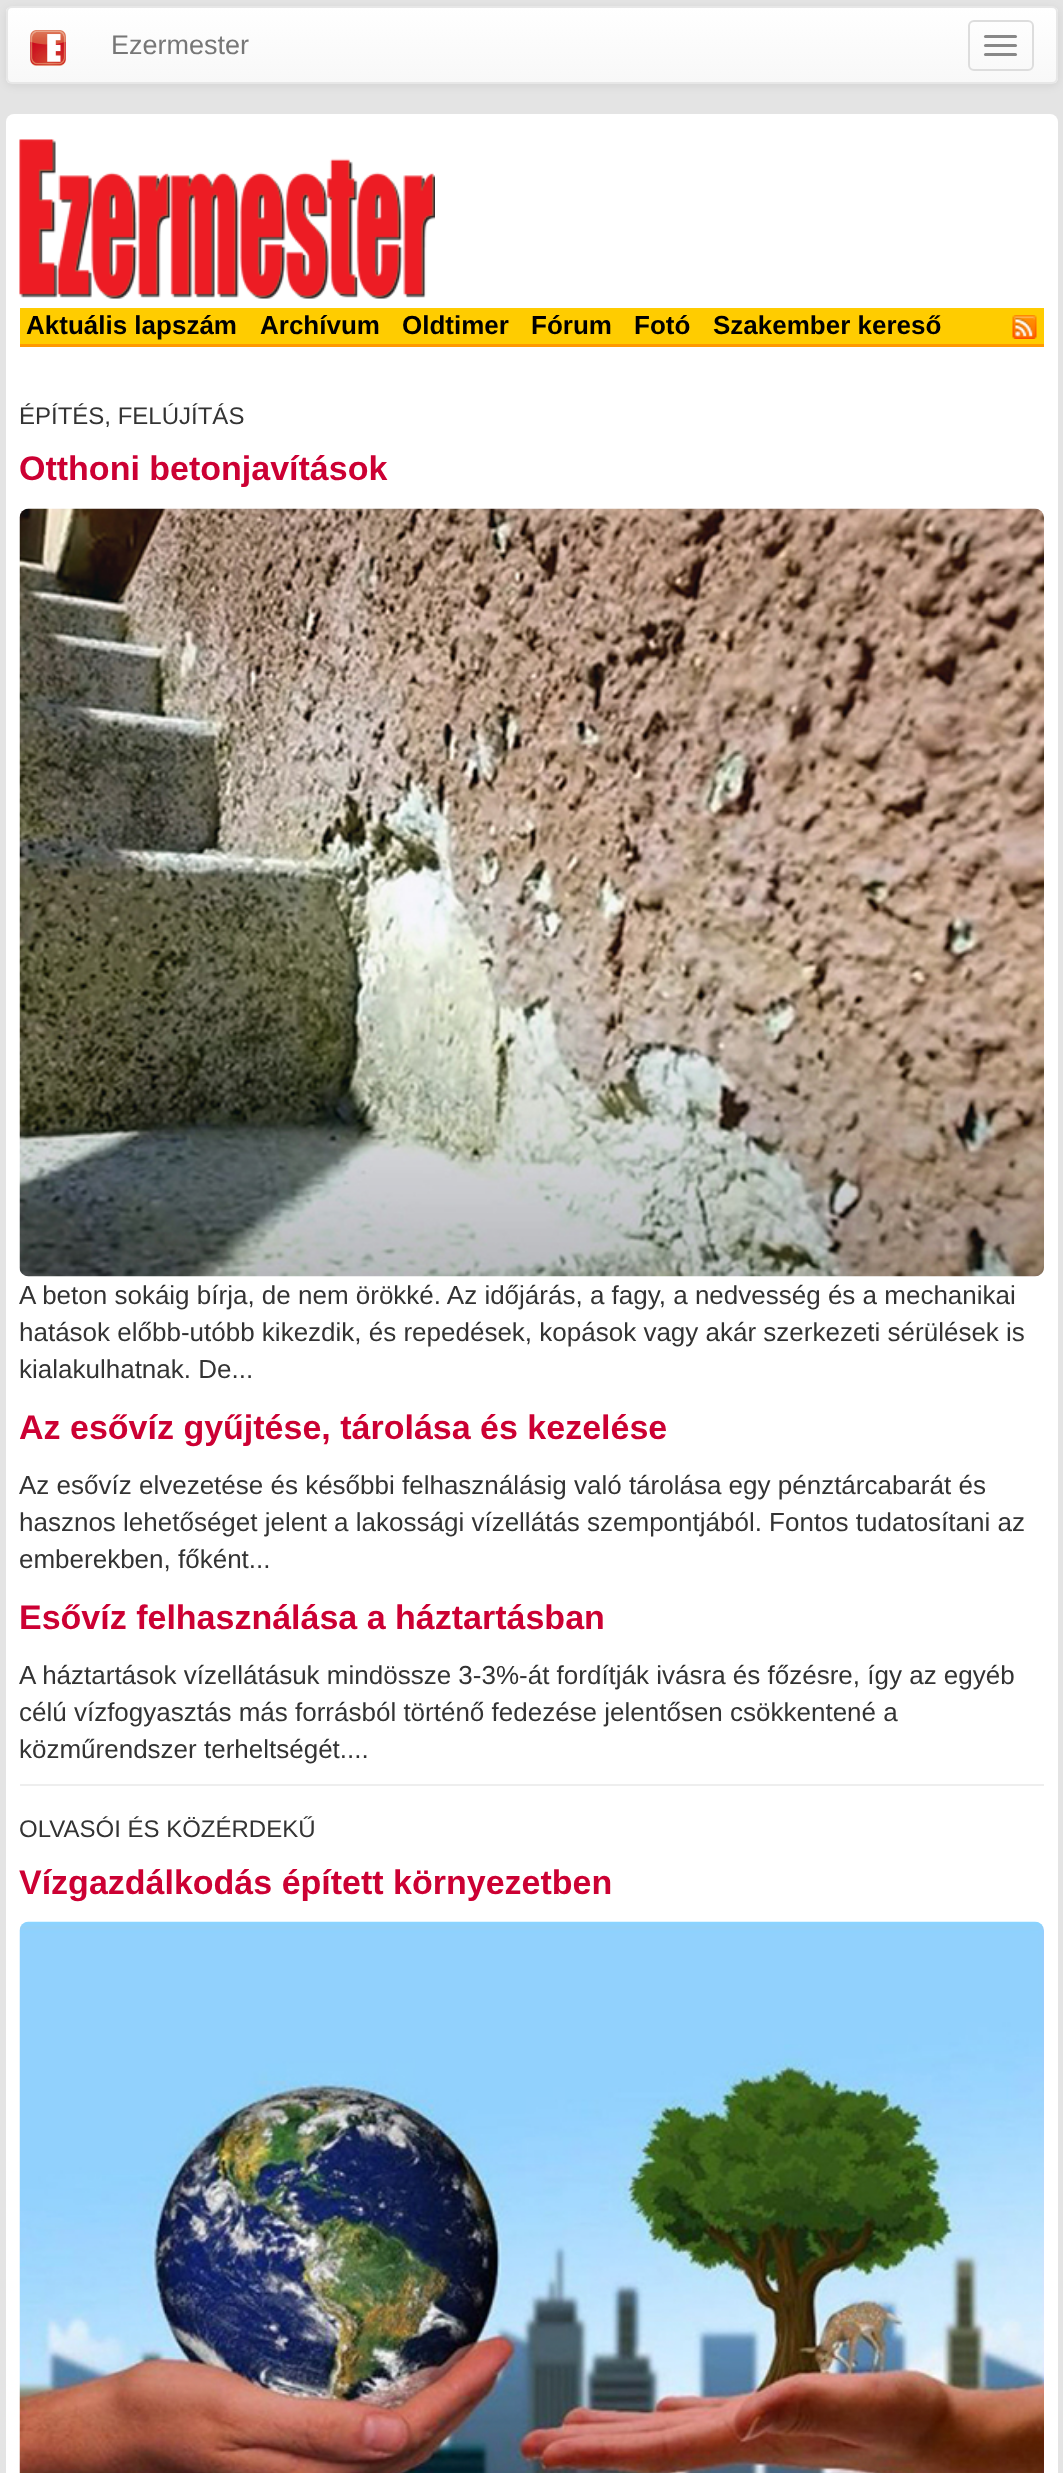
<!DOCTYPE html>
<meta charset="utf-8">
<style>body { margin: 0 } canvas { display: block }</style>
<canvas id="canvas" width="1063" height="2473"></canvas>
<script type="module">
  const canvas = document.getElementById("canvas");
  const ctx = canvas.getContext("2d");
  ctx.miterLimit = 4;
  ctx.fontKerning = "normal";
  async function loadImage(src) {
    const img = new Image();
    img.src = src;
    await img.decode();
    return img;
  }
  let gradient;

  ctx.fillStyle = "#e4e4e4";
  ctx.fillRect(0, 0, 1063, 2473);
  ctx.fillStyle = "rgba(0, 0, 0, 0.07)";
  ctx.filter = "blur(4px)";
  ctx.beginPath();
  ctx.roundRect(6, 8, 1052, 78, 6);
  ctx.fill();
  ctx.filter = "none";
  ctx.save();
  ctx.beginPath();
  ctx.roundRect(6, 6, 1052, 78, 6);
  ctx.clip();
  gradient = ctx.createLinearGradient(532, 7.5, 532, 83);
  gradient.addColorStop(0, "#ffffff");
  gradient.addColorStop(1, "#f8f8f8");
  ctx.fillStyle = gradient;
  ctx.fillRect(6, 8, 1052, 75);
  ctx.restore();
  ctx.beginPath();
  ctx.roundRect(7, 7, 1050, 76, 5);
  ctx.strokeStyle = "#e7e7e7";
  ctx.lineWidth = 2;
  ctx.stroke();
  ctx.drawImage(await loadImage("img1.png"), 30, 30, 36, 36);
  ctx.font = "27px Liberation Sans";
  ctx.fillStyle = "#777777";
  ctx.fillText("Ezermester", 111, 54);
  ctx.beginPath();
  ctx.roundRect(969, 21, 64, 49, 5);
  ctx.strokeStyle = "#dddddd";
  ctx.stroke();
  ctx.fillStyle = "#888888";
  ctx.beginPath();
  ctx.roundRect(984, 35, 33, 3, 1.5);
  ctx.fill();
  ctx.beginPath();
  ctx.roundRect(984, 44, 33, 3, 1.5);
  ctx.fill();
  ctx.beginPath();
  ctx.roundRect(984, 53, 33, 3, 1.5);
  ctx.fill();
  ctx.fillStyle = "#ffffff";
  ctx.beginPath();
  ctx.roundRect(6, 114, 1052, 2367, 8);
  ctx.fill();
  ctx.drawImage(await loadImage("img2.png"), 19, 139, 416, 160);
  ctx.fillStyle = "#ffcc00";
  ctx.fillRect(20, 308, 1024, 36);
  ctx.fillStyle = "#ff9900";
  ctx.fillRect(20, 344, 1024, 3);
  ctx.font = "bold 26px Liberation Sans";
  ctx.fillStyle = "#000000";
  ctx.fillText("Aktuális lapszám", 26, 334);
  ctx.fillText("Archívum", 260, 334);
  ctx.fillText("Oldtimer", 402, 334);
  ctx.fillText("Fórum", 531, 334);
  ctx.fillText("Fotó", 634, 334);
  ctx.fillText("Szakember kereső", 713, 334);
  ctx.drawImage(await loadImage("img3.png"), 1012, 315, 25, 24);
  ctx.font = "24px Liberation Sans";
  ctx.fillStyle = "#333333";
  ctx.fillText("ÉPÍTÉS, FELÚJÍTÁS", 19, 424);
  ctx.font = "bold 34px Liberation Sans";
  ctx.fillStyle = "#cc0033";
  ctx.fillText("Otthoni betonjavítások", 19, 480);
  ctx.drawImage(await loadImage("img4.png"), 19, 508, 1025, 769);
  ctx.font = "26px Liberation Sans";
  ctx.fillStyle = "#333333";
  ctx.fillText("A beton sokáig bírja, de nem örökké. Az időjárás, a fagy, a nedvesség és a mechanikai", 19, 1304);
  ctx.fillText("hatások előbb-utóbb kikezdik, és repedések, kopások vagy akár szerkezeti sérülések is", 19, 1341);
  ctx.fillText("kialakulhatnak. De...", 19, 1378);
  ctx.font = "bold 34px Liberation Sans";
  ctx.fillStyle = "#cc0033";
  ctx.fillText("Az esővíz gyűjtése, tárolása és kezelése", 19, 1439);
  ctx.font = "26px Liberation Sans";
  ctx.fillStyle = "#333333";
  ctx.fillText("Az esővíz elvezetése és későbbi felhasználásig való tárolása egy pénztárcabarát és", 19, 1494);
  ctx.fillText("hasznos lehetőséget jelent a lakossági vízellátás szempontjából. Fontos tudatosítani az", 19, 1531);
  ctx.fillText("emberekben, főként...", 19, 1568);
  ctx.font = "bold 34px Liberation Sans";
  ctx.fillStyle = "#cc0033";
  ctx.fillText("Esővíz felhasználása a háztartásban", 19, 1629);
  ctx.font = "26px Liberation Sans";
  ctx.fillStyle = "#333333";
  ctx.fillText("A háztartások vízellátásuk mindössze 3-3%-át fordítják ivásra és főzésre, így az egyéb", 19, 1684);
  ctx.fillText("célú vízfogyasztás más forrásból történő fedezése jelentősen csökkentené a", 19, 1721);
  ctx.fillText("közműrendszer terheltségét....", 19, 1758);
  ctx.fillStyle = "#eeeeee";
  ctx.fillRect(20, 1784, 1024, 2);
  ctx.font = "24px Liberation Sans";
  ctx.fillStyle = "#333333";
  ctx.fillText("OLVASÓI ÉS KÖZÉRDEKŰ", 19, 1837);
  ctx.font = "bold 34px Liberation Sans";
  ctx.fillStyle = "#cc0033";
  ctx.fillText("Vízgazdálkodás épített környezetben", 19, 1894);
  ctx.drawImage(await loadImage("img5.png"), 19, 1921, 1025, 552);
</script>
